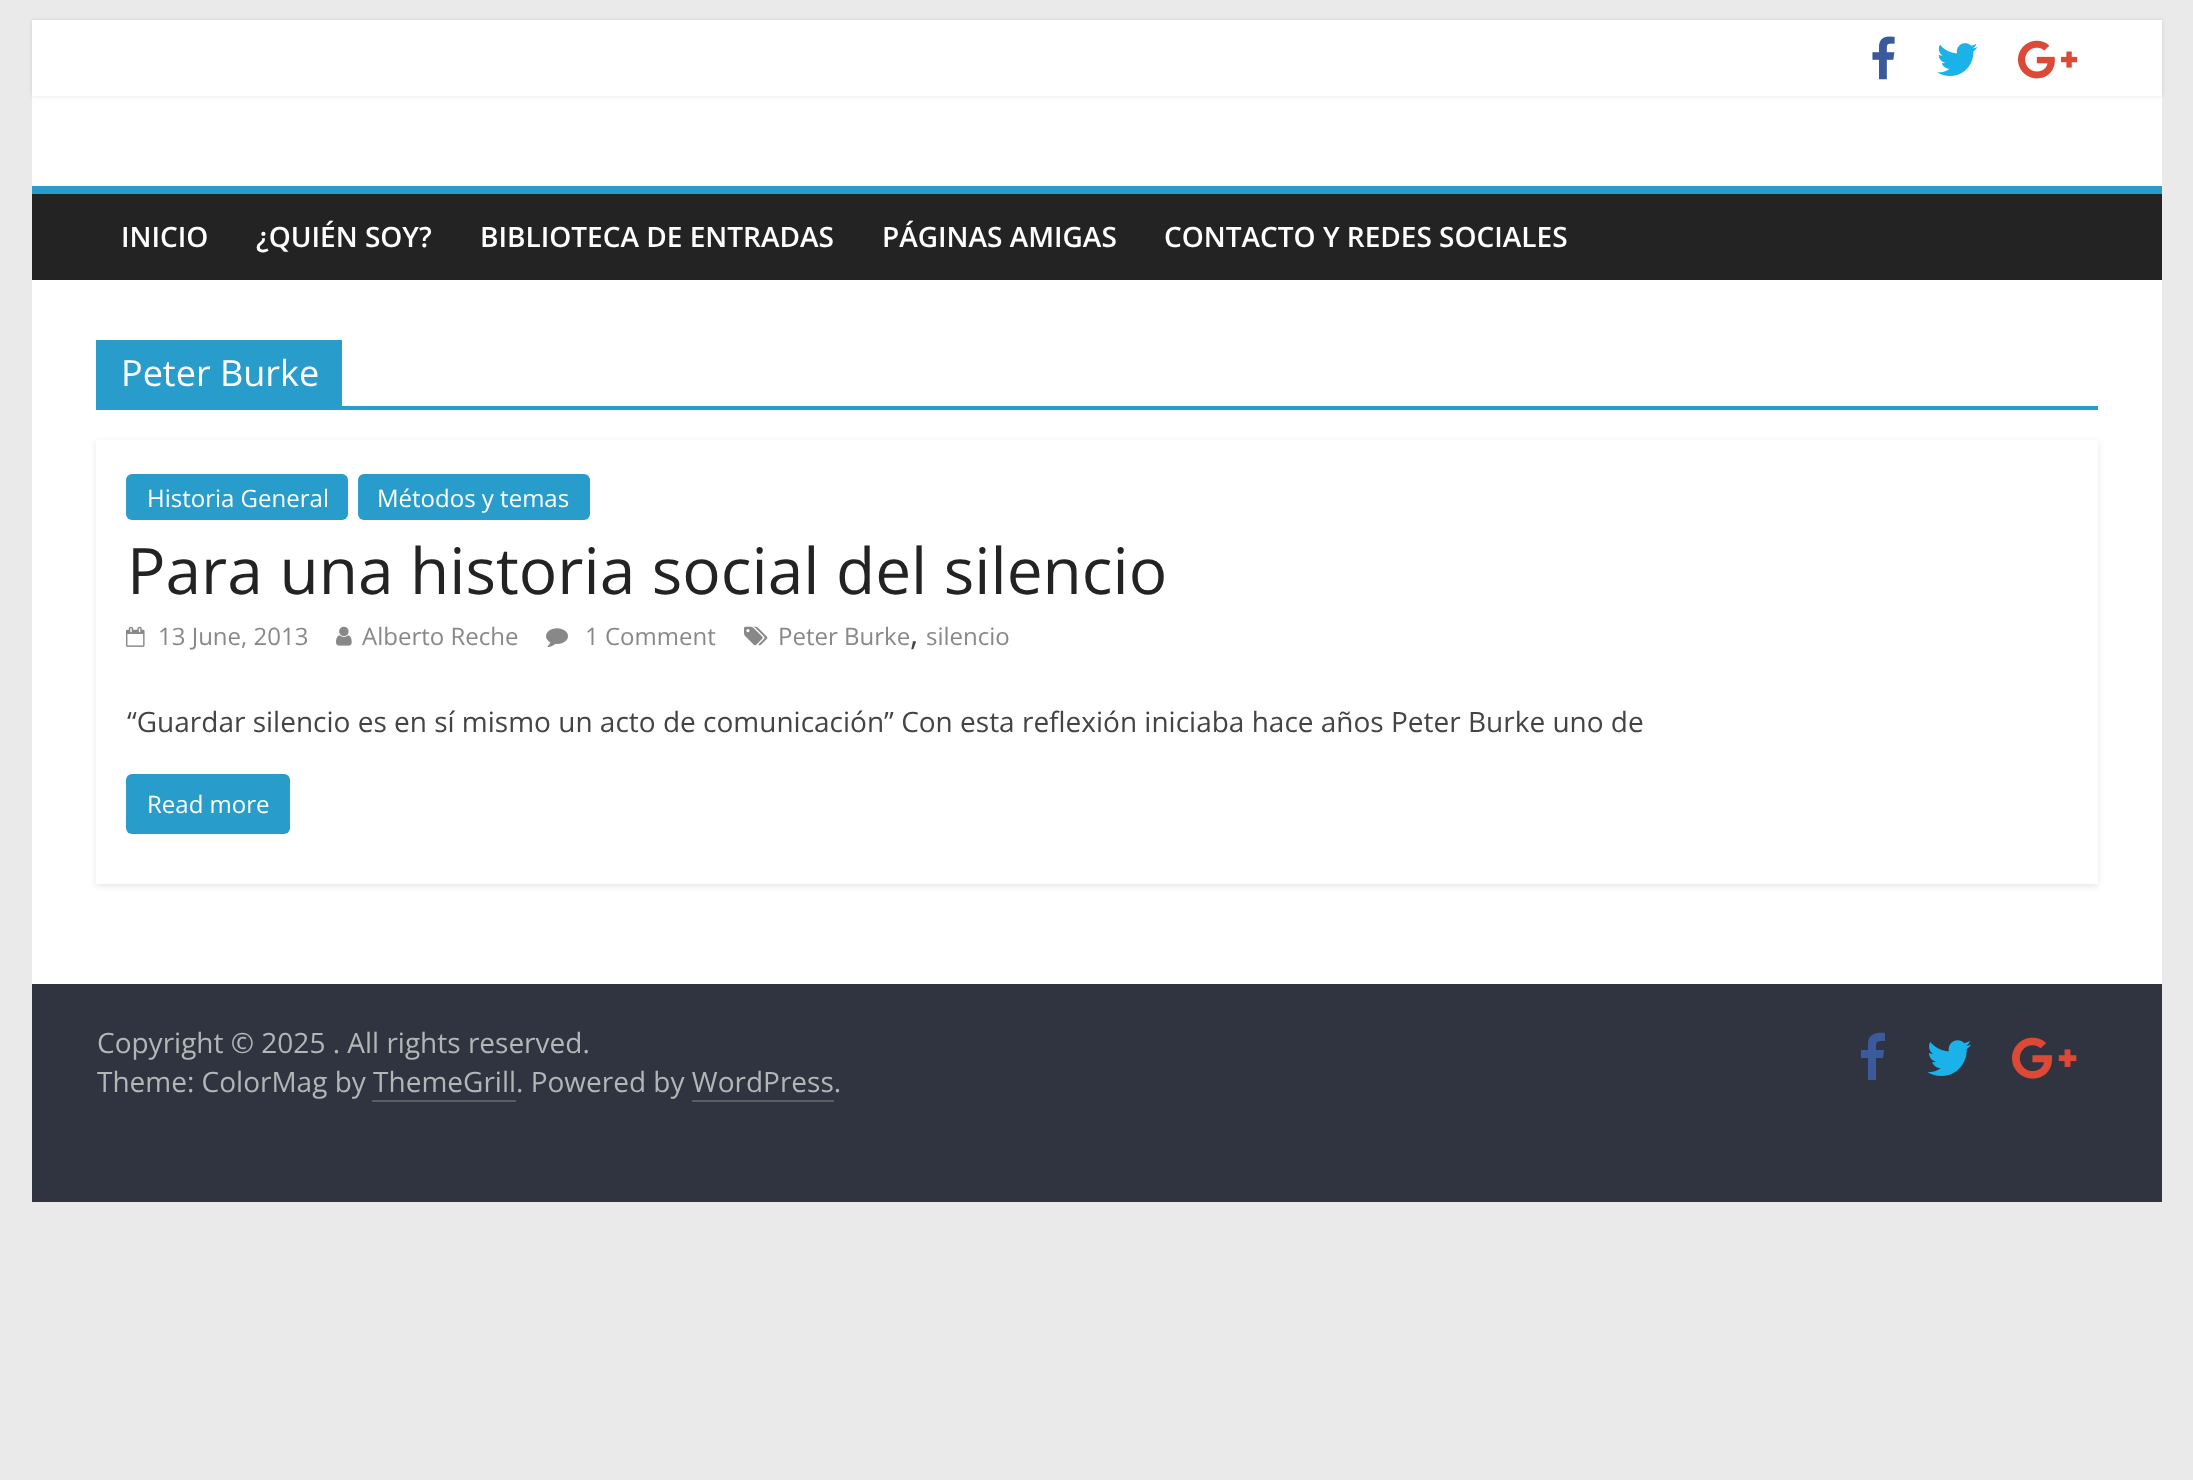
<!DOCTYPE html>
<meta charset="utf-8">
<style>body { margin: 0 } canvas { display: block }</style>
<canvas id="canvas" width="2193" height="1480"></canvas>
<script type="module">
  const canvas = document.getElementById("canvas");
  const ctx = canvas.getContext("2d");
  ctx.miterLimit = 4;
  ctx.fontKerning = "normal";
  async function loadImage(src) {
    const img = new Image();
    img.src = src;
    await img.decode();
    return img;
  }

  ctx.fillStyle = "#eaeaea";
  ctx.fillRect(0, 0, 2193, 1480);
  ctx.fillStyle = "#ffffff";
  ctx.fillRect(32, 20, 2130, 166);
  ctx.save();
  ctx.beginPath();
  ctx.moveTo(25, 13);
  ctx.lineTo(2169, 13);
  ctx.lineTo(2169, 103);
  ctx.lineTo(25, 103);
  ctx.closePath();
  ctx.moveTo(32, 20);
  ctx.lineTo(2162, 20);
  ctx.lineTo(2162, 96);
  ctx.lineTo(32, 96);
  ctx.closePath();
  ctx.clip("evenodd");
  ctx.fillStyle = "rgba(0, 0, 0, 0.1)";
  ctx.filter = "blur(2px)";
  ctx.beginPath();
  ctx.rect(32, 20, 2130, 76);
  ctx.fill();
  ctx.filter = "none";
  ctx.restore();
  ctx.drawImage(await loadImage("img1.png"), 1872, 36, 23, 44);
  ctx.drawImage(await loadImage("img2.png"), 1937, 43, 41, 33);
  ctx.drawImage(await loadImage("img3.png"), 2018, 40, 60, 39);
  ctx.fillStyle = "#232323";
  ctx.fillRect(32, 194, 2130, 86);
  ctx.fillStyle = "#289dcc";
  ctx.fillRect(32, 186, 2130, 8);
  ctx.font = "600 28px Open Sans";
  ctx.fillStyle = "#ffffff";
  ctx.fillText("INICIO", 121, 247);
  ctx.fillText("¿QUIÉN SOY?", 256, 247);
  ctx.fillText("BIBLIOTECA DE ENTRADAS", 480, 247);
  ctx.fillText("PÁGINAS AMIGAS", 882, 247);
  ctx.fillText("CONTACTO Y REDES SOCIALES", 1164, 247);
  ctx.fillRect(32, 280, 2130, 704);
  ctx.fillStyle = "#289dcc";
  ctx.fillRect(96, 406, 2002, 4);
  ctx.fillRect(96, 340, 246, 66);
  ctx.font = "36px Open Sans";
  ctx.fillStyle = "#ffffff";
  ctx.fillText("Peter Burke", 121, 386);
  ctx.save();
  ctx.beginPath();
  ctx.moveTo(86, 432);
  ctx.lineTo(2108, 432);
  ctx.lineTo(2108, 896);
  ctx.lineTo(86, 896);
  ctx.closePath();
  ctx.moveTo(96, 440);
  ctx.lineTo(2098, 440);
  ctx.lineTo(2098, 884);
  ctx.lineTo(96, 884);
  ctx.closePath();
  ctx.clip("evenodd");
  ctx.fillStyle = "rgba(0, 0, 0, 0.1)";
  ctx.filter = "blur(3px)";
  ctx.beginPath();
  ctx.rect(96, 442, 2002, 444);
  ctx.fill();
  ctx.filter = "none";
  ctx.restore();
  ctx.fillStyle = "#289dcc";
  ctx.beginPath();
  ctx.roundRect(126, 474, 222, 46, 6);
  ctx.fill();
  ctx.font = "24px Open Sans";
  ctx.fillStyle = "#ffffff";
  ctx.fillText("Historia General", 147, 507);
  ctx.fillStyle = "#289dcc";
  ctx.beginPath();
  ctx.roundRect(358, 474, 232, 46, 6);
  ctx.fill();
  ctx.fillStyle = "#ffffff";
  ctx.fillText("Métodos y temas", 377, 507);
  ctx.font = "64px Open Sans";
  ctx.fillStyle = "#232323";
  ctx.fillText("Para una historia social del silencio", 127, 594);
  ctx.drawImage(await loadImage("img4.png"), 126, 626, 19, 21);
  ctx.font = "24px Open Sans";
  ctx.fillStyle = "#888888";
  ctx.fillText("13 June, 2013", 158, 645);
  ctx.drawImage(await loadImage("img5.png"), 336, 626, 16, 20);
  ctx.fillText("Alberto Reche", 362, 645);
  ctx.drawImage(await loadImage("img6.png"), 546, 628, 22, 20);
  ctx.fillText("1 Comment", 585, 645);
  ctx.drawImage(await loadImage("img7.png"), 744, 626, 24, 20);
  ctx.fillText("Peter Burke", 778, 645);
  ctx.font = "32px Open Sans";
  ctx.fillStyle = "#444444";
  ctx.fillText(",", 910, 645);
  ctx.font = "24px Open Sans";
  ctx.fillStyle = "#888888";
  ctx.fillText("silencio", 926, 645);
  ctx.font = "28px Open Sans";
  ctx.fillStyle = "#444444";
  ctx.fillText("“Guardar silencio es en sí mismo un acto de comunicación” Con esta reflexión iniciaba hace años Peter Burke uno de", 127, 732);
  ctx.fillStyle = "#289dcc";
  ctx.beginPath();
  ctx.roundRect(126, 774, 164, 60, 6);
  ctx.fill();
  ctx.font = "24px Open Sans";
  ctx.fillStyle = "#ffffff";
  ctx.fillText("Read more", 147, 813);
  ctx.fillStyle = "#303440";
  ctx.fillRect(32, 984, 2130, 218);
  ctx.font = "28px Open Sans";
  ctx.fillStyle = "#b1b6b6";
  ctx.fillText("Copyright © 2025 . All rights reserved.", 97, 1053);
  ctx.fillText("Theme: ColorMag by ThemeGrill. Powered by WordPress.", 97, 1092);
  ctx.fillStyle = "#5a5d62";
  ctx.fillRect(372, 1100, 144, 2);
  ctx.fillRect(692, 1100, 142, 2);
  ctx.fillStyle = "#3b5a9b";
  ctx.beginPath();
  ctx.moveTo(1885, 1033);
  ctx.lineTo(1885, 1041);
  ctx.bezierCurveTo(1876, 1041, 1876, 1041, 1876, 1050);
  ctx.lineTo(1884, 1050);
  ctx.lineTo(1883, 1058);
  ctx.lineTo(1876, 1058);
  ctx.lineTo(1876, 1080);
  ctx.lineTo(1868, 1080);
  ctx.lineTo(1868, 1058);
  ctx.lineTo(1861, 1058);
  ctx.lineTo(1861, 1050);
  ctx.lineTo(1868, 1050);
  ctx.lineTo(1868, 1042);
  ctx.bezierCurveTo(1869, 1033, 1878, 1032, 1885, 1033);
  ctx.closePath();
  ctx.fill();
  ctx.drawImage(await loadImage("img8.png"), 1927, 1040, 44, 36);
  ctx.drawImage(await loadImage("img9.png"), 2012, 1037, 65, 42);
</script>
